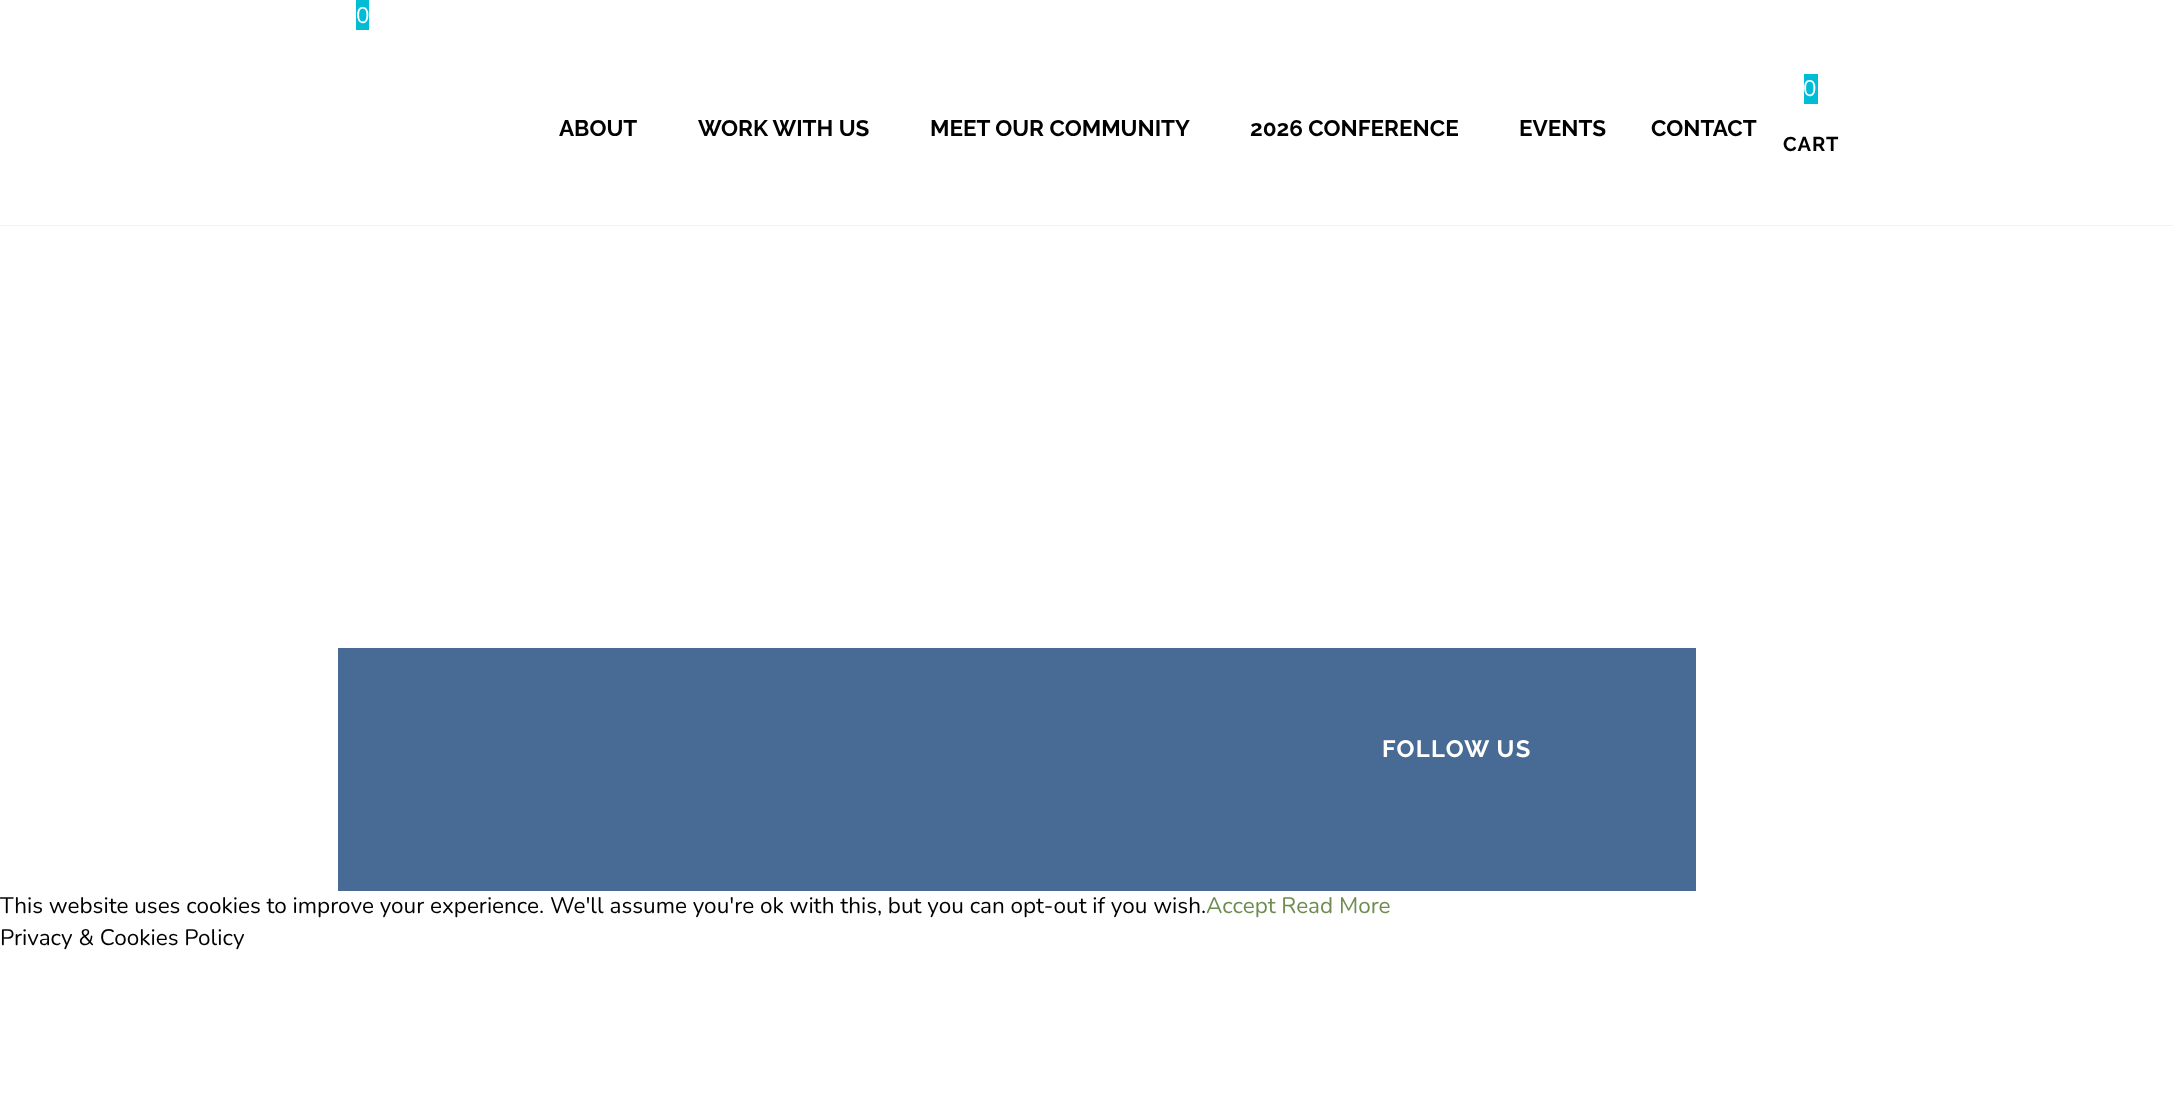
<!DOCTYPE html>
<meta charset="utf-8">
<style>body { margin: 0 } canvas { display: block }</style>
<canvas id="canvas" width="2173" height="1106"></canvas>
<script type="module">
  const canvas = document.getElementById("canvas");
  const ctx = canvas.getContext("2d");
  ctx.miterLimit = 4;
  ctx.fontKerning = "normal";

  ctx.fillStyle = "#ffffff";
  ctx.fillRect(0, 0, 2173, 1106);
  ctx.save();
  ctx.beginPath();
  ctx.rect(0, 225, 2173, 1);
  ctx.clip();
  ctx.fillStyle = "rgba(56, 69, 84, 0.2)";
  ctx.filter = "blur(1px)";
  ctx.beginPath();
  ctx.rect(0, 0, 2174, 225);
  ctx.fill();
  ctx.filter = "none";
  ctx.restore();
  ctx.fillStyle = "#00bcd4";
  ctx.fillRect(356, 0, 13, 30);
  ctx.font = "22.5px Nunito";
  ctx.fillStyle = "#ffffff";
  ctx.fillText("0", 356, 23);
  ctx.font = "bold 22.5px Raleway";
  ctx.fillStyle = "#000000";
  ctx.fillText("ABOUT", 559, 136);
  ctx.fillText("WORK WITH US", 698, 136);
  ctx.fillText("MEET OUR COMMUNITY", 930, 136);
  ctx.fillText("2026 CONFERENCE", 1250, 136);
  ctx.fillText("EVENTS", 1519, 136);
  ctx.fillText("CONTACT", 1651, 136);
  ctx.fillStyle = "#00bcd4";
  ctx.fillRect(1804, 74, 14, 30);
  ctx.font = "22.5px Nunito";
  ctx.fillStyle = "#ffffff";
  ctx.fillText("0", 1803, 96);
  ctx.letterSpacing = "1px";
  ctx.font = "bold 20px Raleway";
  ctx.fillStyle = "#000000";
  ctx.fillText("CART", 1783, 151);
  ctx.fillStyle = "#476b94";
  ctx.fillRect(338, 648, 1358, 243);
  ctx.letterSpacing = "1.25px";
  ctx.font = "bold 23.75px Raleway";
  ctx.fillStyle = "#ffffff";
  ctx.fillText("FOLLOW US", 1382, 757);
  ctx.letterSpacing = "0px";
  ctx.font = "22.5px Nunito";
  ctx.fillStyle = "#000000";
  ctx.fillText("This website uses cookies to improve your experience. We'll assume you're ok with this, but you can opt-out if you wish.", 0, 913);
  ctx.fillStyle = "#6f8c51";
  ctx.fillText("Accept Read More", 1206, 913);
  ctx.fillStyle = "#000000";
  ctx.fillText("Privacy & Cookies Policy", 0, 945);
</script>
